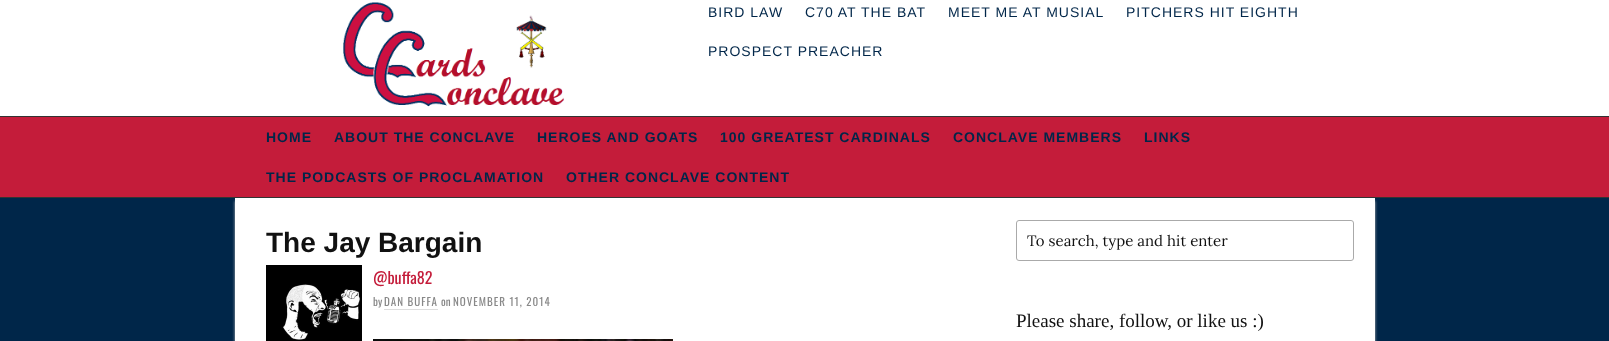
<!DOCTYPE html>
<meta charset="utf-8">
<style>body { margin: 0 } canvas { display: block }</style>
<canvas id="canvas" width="1609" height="341"></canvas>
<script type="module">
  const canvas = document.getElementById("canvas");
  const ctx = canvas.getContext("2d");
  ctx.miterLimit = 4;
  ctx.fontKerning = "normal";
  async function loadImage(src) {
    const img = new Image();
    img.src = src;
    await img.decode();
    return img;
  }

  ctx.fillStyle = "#ffffff";
  ctx.fillRect(0, 0, 1609, 341);
  ctx.drawImage(await loadImage("img1.png"), 343, 2, 222, 105);
  ctx.letterSpacing = "1px";
  ctx.font = "14px Liberation Sans";
  ctx.fillStyle = "#002649";
  ctx.fillText("BIRD LAW", 708, 17);
  ctx.fillText("C70 AT THE BAT", 805, 17);
  ctx.fillText("MEET ME AT MUSIAL", 948, 17);
  ctx.fillText("PITCHERS HIT EIGHTH", 1126, 17);
  ctx.fillText("PROSPECT PREACHER", 708, 56);
  ctx.fillStyle = "#c41c3a";
  ctx.fillRect(0, 117, 1609, 80);
  ctx.fillStyle = "#333333";
  ctx.fillRect(0, 116, 1609, 1);
  ctx.fillRect(0, 197, 1609, 1);
  ctx.font = "bold 14px Liberation Sans";
  ctx.fillStyle = "#002649";
  ctx.fillText("HOME", 266, 142);
  ctx.fillText("ABOUT THE CONCLAVE", 334, 142);
  ctx.fillText("HEROES AND GOATS", 537, 142);
  ctx.fillText("100 GREATEST CARDINALS", 720, 142);
  ctx.fillText("CONCLAVE MEMBERS", 953, 142);
  ctx.fillText("LINKS", 1144, 142);
  ctx.fillText("THE PODCASTS OF PROCLAMATION", 266, 182);
  ctx.fillText("OTHER CONCLAVE CONTENT", 566, 182);
  ctx.fillRect(0, 198, 1609, 143);
  ctx.fillStyle = "#bbbbbb";
  ctx.filter = "blur(1.5px)";
  ctx.beginPath();
  ctx.rect(235, 201, 1140, 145);
  ctx.fill();
  ctx.filter = "none";
  ctx.fillStyle = "#ffffff";
  ctx.fillRect(235, 198, 1140, 143);
  ctx.letterSpacing = "0px";
  ctx.font = "bold 28px Liberation Sans";
  ctx.fillStyle = "#111111";
  ctx.fillText("The Jay Bargain", 266, 252);
  ctx.drawImage(await loadImage("img2.png"), 266, 265, 96, 76);
  ctx.font = "16px Oswald";
  ctx.fillStyle = "#c41c3a";
  ctx.fillText("@buffa82", 373, 284);
  ctx.font = "11px Oswald";
  ctx.fillStyle = "#888888";
  ctx.fillText("by", 373, 306);
  ctx.letterSpacing = "1px";
  ctx.fillText("DAN BUFFA", 384, 306);
  ctx.fillStyle = "#dddddd";
  ctx.fillRect(384, 309, 54, 1);
  ctx.letterSpacing = "0px";
  ctx.fillStyle = "#888888";
  ctx.fillText("on", 441, 306);
  ctx.letterSpacing = "1px";
  ctx.fillText("NOVEMBER 11, 2014", 453, 306);
  ctx.drawImage(await loadImage("img3.png"), 373, 339, 300, 2);
  ctx.beginPath();
  ctx.roundRect(1016.5, 220.5, 337, 40, 2.5);
  ctx.strokeStyle = "#aaaaaa";
  ctx.stroke();
  ctx.letterSpacing = "0px";
  ctx.font = "15px Lora";
  ctx.fillStyle = "#111111";
  ctx.fillText("To search, type and hit enter", 1027, 246);
  ctx.font = "19px Liberation Serif";
  ctx.fillText("Please share, follow, or like us :)", 1016, 327);
</script>
